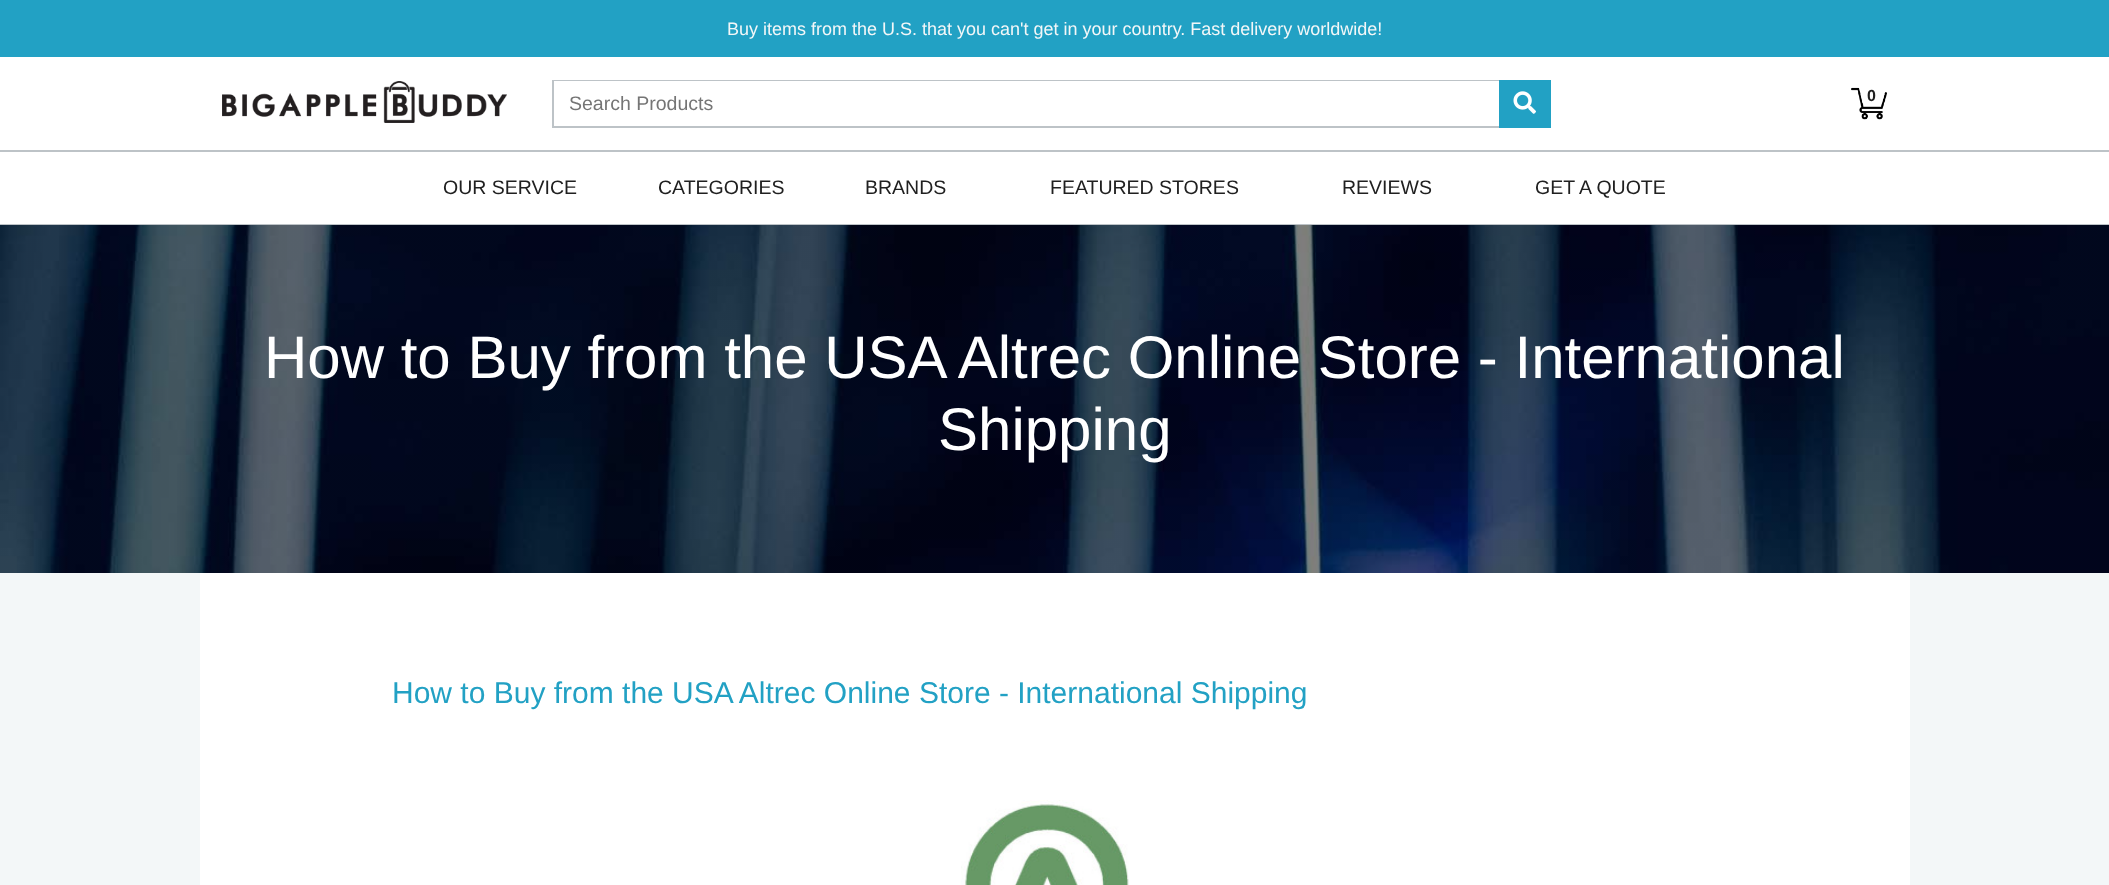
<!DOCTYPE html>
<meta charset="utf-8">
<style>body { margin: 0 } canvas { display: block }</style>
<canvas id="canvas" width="2109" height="885"></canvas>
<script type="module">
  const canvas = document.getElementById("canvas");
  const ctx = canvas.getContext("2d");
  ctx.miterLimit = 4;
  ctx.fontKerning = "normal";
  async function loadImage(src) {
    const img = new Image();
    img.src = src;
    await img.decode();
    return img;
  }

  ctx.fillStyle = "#ffffff";
  ctx.fillRect(0, 0, 2109, 885);
  ctx.fillStyle = "#22a1c4";
  ctx.fillRect(0, 0, 2109, 57);
  ctx.font = "18px Liberation Sans";
  ctx.fillStyle = "#f3f7f8";
  ctx.fillText("Buy items from the U.S. that you can't get in your country. Fast delivery worldwide!", 727, 35);
  ctx.fillStyle = "#bdc3c7";
  ctx.fillRect(0, 150, 2109, 2);
  ctx.drawImage(await loadImage("img1.png"), 222, 81, 285, 42);
  ctx.strokeStyle = "#bdc3c7";
  ctx.lineWidth = 2;
  ctx.strokeRect(553, 81, 997, 46);
  ctx.fillStyle = "#ffffff";
  ctx.fillRect(554, 81, 945, 1);
  ctx.font = "19.5px Liberation Sans";
  ctx.fillStyle = "#757575";
  ctx.fillText("Search Products", 569, 110);
  ctx.fillStyle = "#22a1c4";
  ctx.fillRect(1499, 80, 52, 48);
  ctx.drawImage(await loadImage("img2.png"), 1513, 91, 23, 23);
  ctx.drawImage(await loadImage("img3.png"), 1851, 87, 36, 33);
  ctx.font = "bold 16px Liberation Sans";
  ctx.fillStyle = "#202020";
  ctx.fillText("0", 1867, 101);
  ctx.fillStyle = "#bdc3c7";
  ctx.fillRect(0, 224, 2109, 1);
  ctx.font = "19.5px Liberation Sans";
  ctx.fillStyle = "#202020";
  ctx.fillText("OUR SERVICE", 443, 194);
  ctx.fillText("CATEGORIES", 658, 194);
  ctx.fillText("BRANDS", 865, 194);
  ctx.fillText("FEATURED STORES", 1050, 194);
  ctx.fillText("REVIEWS", 1342, 194);
  ctx.fillText("GET A QUOTE", 1535, 194);
  ctx.drawImage(await loadImage("img4.png"), 0, 225, 2109, 348);
  ctx.font = "60px Liberation Sans";
  ctx.fillStyle = "#ffffff";
  ctx.fillText("How to Buy from the USA Altrec Online Store - International", 264, 378);
  ctx.fillText("Shipping", 938, 450);
  ctx.fillStyle = "#f3f7f8";
  ctx.fillRect(0, 573, 2109, 312);
  ctx.fillStyle = "#ffffff";
  ctx.fillRect(200, 573, 1710, 312);
  ctx.font = "30px Liberation Sans";
  ctx.fillStyle = "#22a1c4";
  ctx.fillText("How to Buy from the USA Altrec Online Store - International Shipping", 392, 703);
  ctx.drawImage(await loadImage("img5.png"), 961, 800, 168, 85);
</script>
